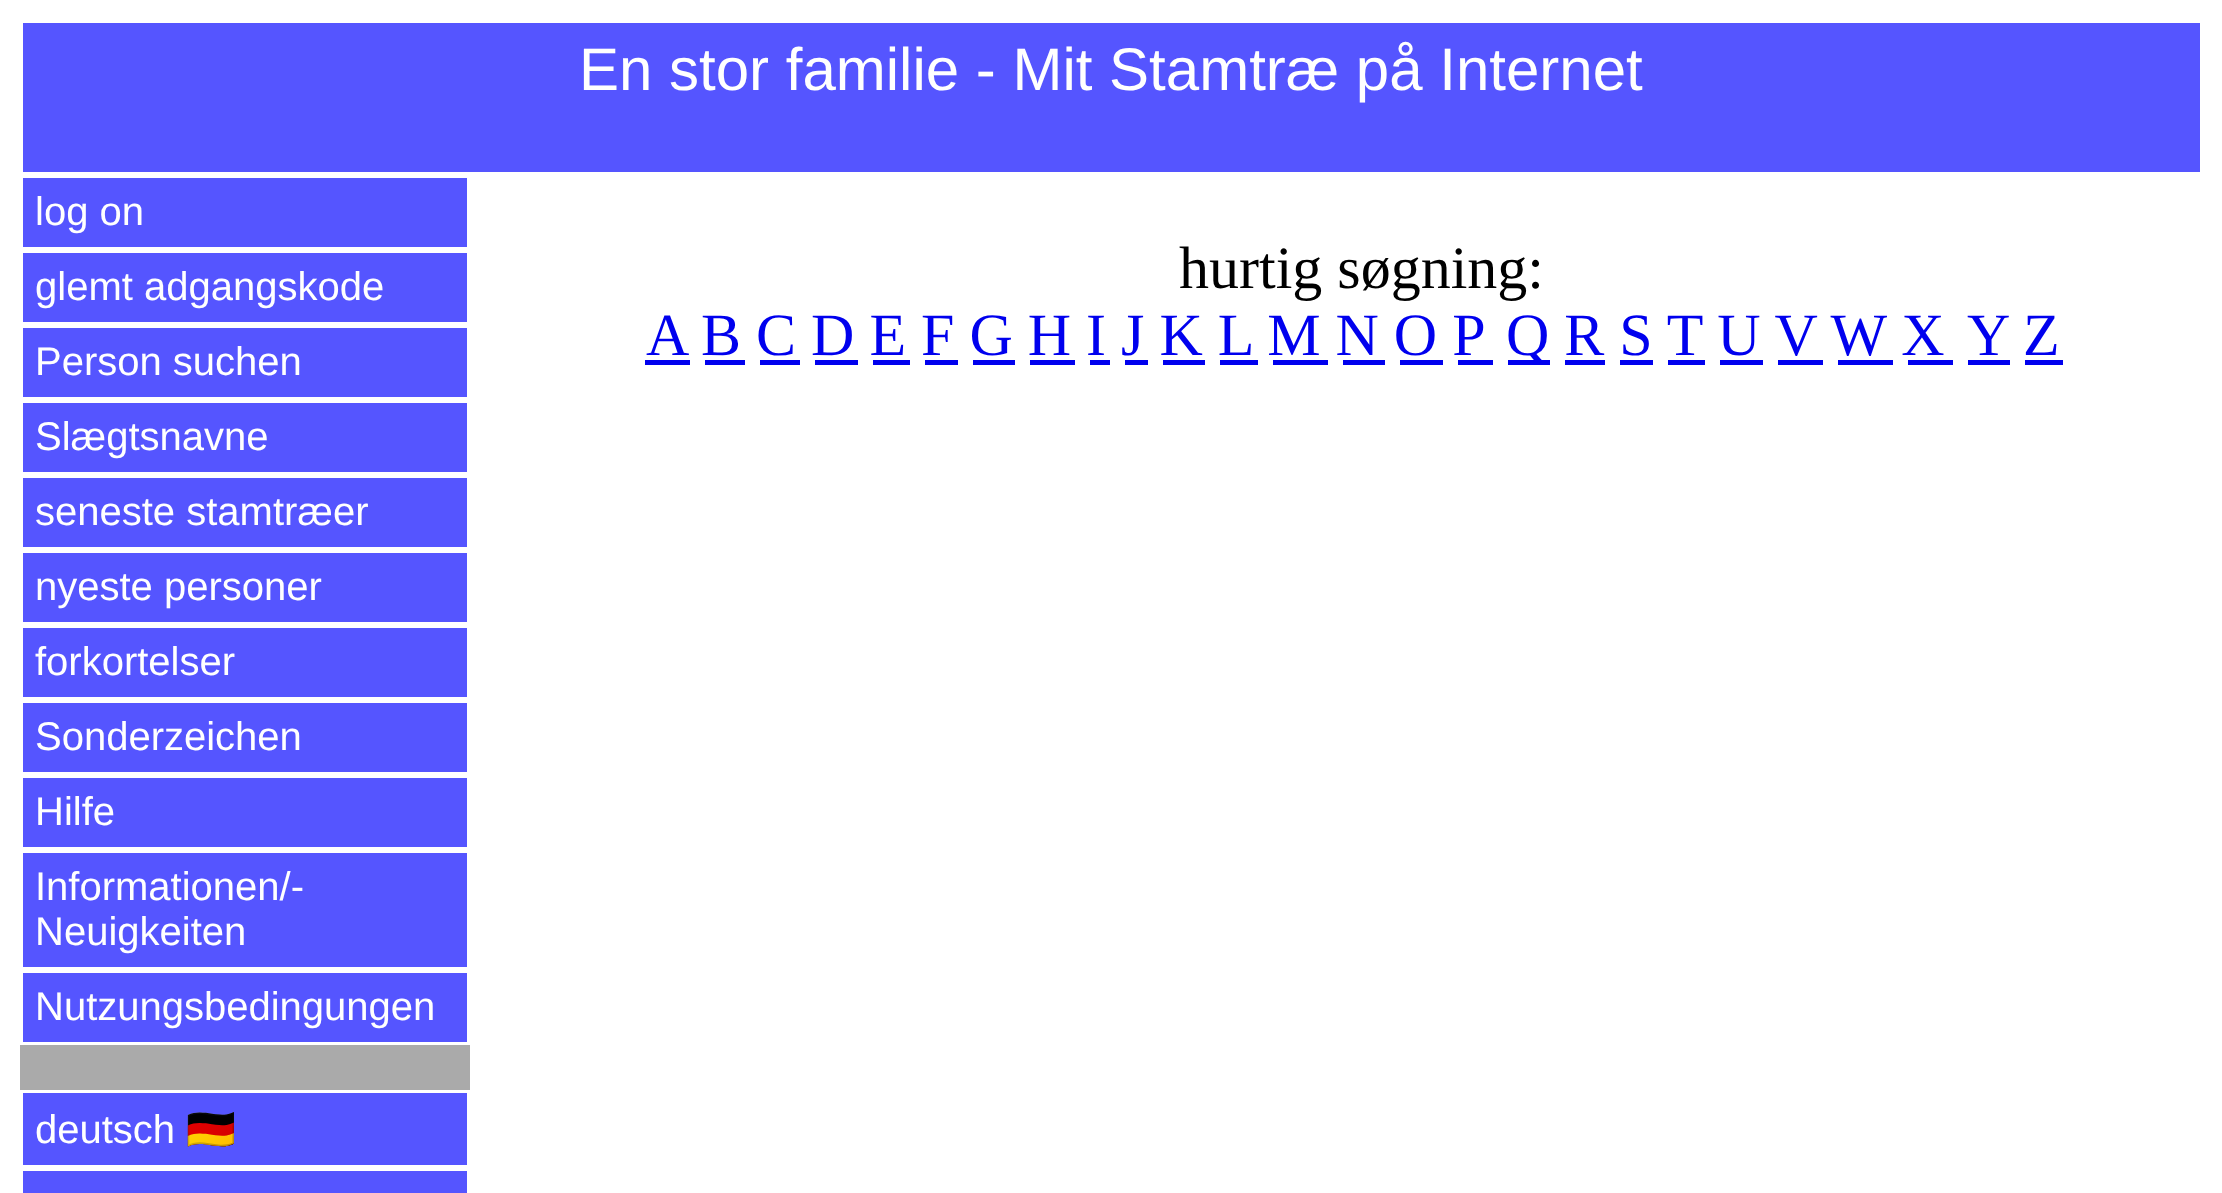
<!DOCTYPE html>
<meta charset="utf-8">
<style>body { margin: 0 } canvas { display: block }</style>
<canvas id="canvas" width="2222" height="1193"></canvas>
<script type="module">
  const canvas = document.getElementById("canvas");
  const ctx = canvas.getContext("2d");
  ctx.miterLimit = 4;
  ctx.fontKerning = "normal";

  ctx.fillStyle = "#ffffff";
  ctx.fillRect(0, 0, 2222, 1193);
  ctx.fillStyle = "#5555ff";
  ctx.fillRect(23, 23, 2177, 149);
  ctx.font = "60px Liberation Sans";
  ctx.fillStyle = "#ffffff";
  ctx.fillText("En stor familie - Mit Stamtræ på Internet", 579, 90);
  ctx.fillStyle = "#aaaaaa";
  ctx.fillRect(20, 1045, 450, 45);
  ctx.fillStyle = "#5555ff";
  ctx.fillRect(23, 178, 444, 69);
  ctx.font = "40px Liberation Sans";
  ctx.fillStyle = "#ffffff";
  ctx.fillText("log on", 35, 225);
  ctx.fillStyle = "#5555ff";
  ctx.fillRect(23, 253, 444, 69);
  ctx.fillStyle = "#ffffff";
  ctx.fillText("glemt adgangskode", 35, 300);
  ctx.fillStyle = "#5555ff";
  ctx.fillRect(23, 328, 444, 69);
  ctx.fillStyle = "#ffffff";
  ctx.fillText("Person suchen", 35, 375);
  ctx.fillStyle = "#5555ff";
  ctx.fillRect(23, 403, 444, 69);
  ctx.fillStyle = "#ffffff";
  ctx.fillText("Slægtsnavne", 35, 450);
  ctx.fillStyle = "#5555ff";
  ctx.fillRect(23, 478, 444, 69);
  ctx.fillStyle = "#ffffff";
  ctx.fillText("seneste stamtræer", 35, 525);
  ctx.fillStyle = "#5555ff";
  ctx.fillRect(23, 553, 444, 69);
  ctx.fillStyle = "#ffffff";
  ctx.fillText("nyeste personer", 35, 600);
  ctx.fillStyle = "#5555ff";
  ctx.fillRect(23, 628, 444, 69);
  ctx.fillStyle = "#ffffff";
  ctx.fillText("forkortelser", 35, 675);
  ctx.fillStyle = "#5555ff";
  ctx.fillRect(23, 703, 444, 69);
  ctx.fillStyle = "#ffffff";
  ctx.fillText("Sonderzeichen", 35, 750);
  ctx.fillStyle = "#5555ff";
  ctx.fillRect(23, 778, 444, 69);
  ctx.fillStyle = "#ffffff";
  ctx.fillText("Hilfe", 35, 825);
  ctx.fillStyle = "#5555ff";
  ctx.fillRect(23, 853, 444, 114);
  ctx.fillStyle = "#ffffff";
  ctx.fillText("Informationen/-", 35, 900);
  ctx.fillText("Neuigkeiten", 35, 945);
  ctx.fillStyle = "#5555ff";
  ctx.fillRect(23, 973, 444, 69);
  ctx.fillStyle = "#ffffff";
  ctx.fillText("Nutzungsbedingungen", 35, 1020);
  ctx.fillStyle = "#5555ff";
  ctx.fillRect(23, 1093, 444, 72);
  ctx.fillStyle = "#ffffff";
  ctx.fillText("deutsch", 35, 1143);
  ctx.font = "40px Noto Color Emoji";
  ctx.fillText("🇩🇪", 186, 1143);
  ctx.fillStyle = "#5555ff";
  ctx.fillRect(23, 1171, 444, 22);
  ctx.font = "60px Liberation Serif";
  ctx.fillStyle = "#000000";
  ctx.fillText("hurtig søgning:", 1179, 288);
  ctx.fillStyle = "#0000ee";
  ctx.fillText("A B C D E F G H I J K L M N O P", 646, 355);
  ctx.fillRect(645, 360, 45, 5);
  ctx.fillRect(1508, 360, 42, 5);
  ctx.fillText("Q R S T U V W X", 1506, 355);
  ctx.fillText("Y Z", 1967, 355);
  ctx.fillRect(705, 360, 40, 5);
  ctx.fillRect(760, 360, 40, 5);
  ctx.fillRect(815, 360, 43, 5);
  ctx.fillRect(873, 360, 37, 5);
  ctx.fillRect(925, 360, 33, 5);
  ctx.fillRect(973, 360, 42, 5);
  ctx.fillRect(1030, 360, 45, 5);
  ctx.fillRect(1090, 360, 20, 5);
  ctx.fillRect(1125, 360, 23, 5);
  ctx.fillRect(1163, 360, 42, 5);
  ctx.fillRect(1220, 360, 38, 5);
  ctx.fillRect(1273, 360, 55, 5);
  ctx.fillRect(1343, 360, 42, 5);
  ctx.fillRect(1400, 360, 43, 5);
  ctx.fillRect(1458, 360, 35, 5);
  ctx.fillRect(1565, 360, 40, 5);
  ctx.fillRect(1620, 360, 33, 5);
  ctx.fillRect(1668, 360, 37, 5);
  ctx.fillRect(1720, 360, 43, 5);
  ctx.fillRect(1778, 360, 45, 5);
  ctx.fillRect(1838, 360, 55, 5);
  ctx.fillRect(1908, 360, 45, 5);
  ctx.fillRect(1968, 360, 42, 5);
  ctx.fillRect(2025, 360, 38, 5);
</script>
